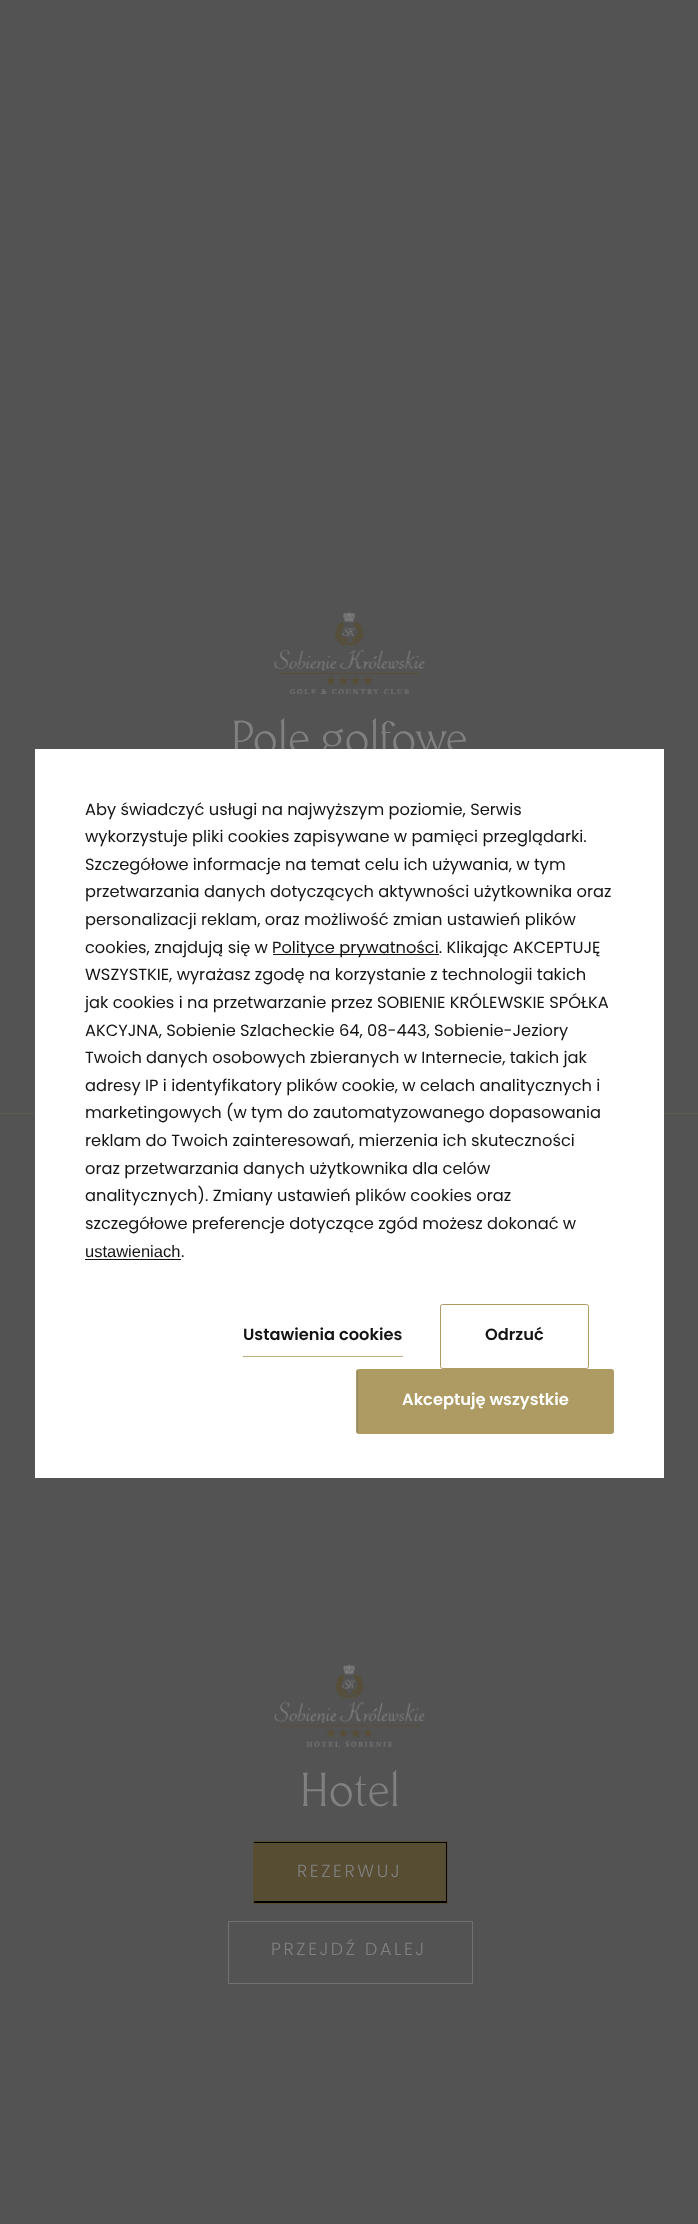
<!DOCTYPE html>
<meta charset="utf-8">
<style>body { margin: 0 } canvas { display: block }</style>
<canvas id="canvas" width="698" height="2224"></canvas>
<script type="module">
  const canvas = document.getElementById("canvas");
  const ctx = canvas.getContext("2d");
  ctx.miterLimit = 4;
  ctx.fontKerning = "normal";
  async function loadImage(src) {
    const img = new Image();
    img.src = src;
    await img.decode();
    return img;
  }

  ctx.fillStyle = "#535353";
  ctx.fillRect(0, 0, 698, 2224);
  ctx.drawImage(await loadImage("img1.png"), 274, 612, 151, 82);
  ctx.font = "100 47.5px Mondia";
  ctx.fillStyle = "#808080";
  ctx.fillText("Pole golfowe", 231, 754);
  ctx.fillStyle = "#5d5a50";
  ctx.fillRect(0, 1113, 698, 1);
  ctx.drawImage(await loadImage("img2.png"), 274, 1664, 151, 83);
  ctx.fillStyle = "#808080";
  ctx.fillText("Hotel", 300, 1806);
  ctx.fillStyle = "#000000";
  ctx.beginPath();
  ctx.rect(253.5, 1841.5, 194, 62);
  ctx.fill();
  ctx.strokeStyle = "#574d32";
  ctx.stroke();
  ctx.save();
  ctx.beginPath();
  ctx.rect(254, 1843, 192, 60);
  ctx.clip();
  ctx.fillStyle = "#574d32";
  ctx.beginPath();
  ctx.moveTo(207, 1841);
  ctx.lineTo(457, 1841);
  ctx.lineTo(492, 1901);
  ctx.lineTo(241, 1901);
  ctx.closePath();
  ctx.fill();
  ctx.restore();
  ctx.letterSpacing = "2.6px";
  ctx.font = "300 17.5px Poppins";
  ctx.fillStyle = "#808080";
  ctx.fillText("REZERWUJ", 297, 1877);
  ctx.strokeStyle = "#707070";
  ctx.strokeRect(228.5, 1921.5, 244, 62);
  ctx.fillText("PRZEJDŹ DALEJ", 271, 1955);
  ctx.fillStyle = "#ffffff";
  ctx.fillRect(35, 749, 629, 729);
  ctx.letterSpacing = "0px";
  ctx.font = "16.25px Poppins";
  ctx.fillStyle = "#141416";
  ctx.fillText("Aby świadczyć usługi na najwyższym poziomie, Serwis", 85, 815);
  ctx.fillText("wykorzystuje pliki cookies zapisywane w pamięci przeglądarki.", 85, 842);
  ctx.fillText("Szczegółowe informacje na temat celu ich używania, w tym", 85, 870);
  ctx.fillText("przetwarzania danych dotyczących aktywności użytkownika oraz", 85, 897);
  ctx.fillText("personalizacji reklam, oraz możliwość zmian ustawień plików", 85, 925);
  ctx.fillText("cookies, znajdują się w", 85, 953);
  ctx.fillRect(273, 954, 166, 1);
  ctx.fillText("Polityce prywatności. Klikając AKCEPTUJĘ", 272, 953);
  ctx.fillText("WSZYSTKIE, wyrażasz zgodę na korzystanie z technologii takich", 85, 980);
  ctx.fillText("jak cookies i na przetwarzanie przez SOBIENIE KRÓLEWSKIE SPÓŁKA", 85, 1008);
  ctx.fillText("AKCYJNA, Sobienie Szlacheckie 64, 08-443, Sobienie-Jeziory", 85, 1036);
  ctx.fillText("Twoich danych osobowych zbieranych w Internecie, takich jak", 85, 1063);
  ctx.fillText("adresy IP i identyfikatory plików cookie, w celach analitycznych i", 85, 1091);
  ctx.fillText("marketingowych (w tym do zautomatyzowanego dopasowania", 85, 1118);
  ctx.fillText("reklam do Twoich zainteresowań, mierzenia ich skuteczności", 85, 1146);
  ctx.fillText("oraz przetwarzania danych użytkownika dla celów", 85, 1174);
  ctx.fillText("analitycznych). Zmiany ustawień plików cookies oraz", 85, 1201);
  ctx.fillText("szczegółowe preferencje dotyczące zgód możesz dokonać w", 85, 1229);
  ctx.font = "16.5px Liberation Sans";
  ctx.fillText("ustawieniach", 85, 1257);
  ctx.fillRect(85, 1259, 96, 1);
  ctx.font = "16.25px Poppins";
  ctx.fillText(".", 181, 1257);
  ctx.font = "600 16.25px Poppins";
  ctx.fillText("Ustawienia cookies", 243, 1340);
  ctx.fillStyle = "#beae82";
  ctx.fillRect(243, 1356, 160, 1);
  ctx.fillStyle = "#ae9a63";
  ctx.fillRect(243, 1356, 1, 1);
  ctx.beginPath();
  ctx.roundRect(440.5, 1304.5, 148, 64, 2);
  ctx.strokeStyle = "#ae9a63";
  ctx.stroke();
  ctx.fillStyle = "#141416";
  ctx.fillText("Odrzuć", 485, 1340);
  ctx.fillStyle = "#938767";
  ctx.beginPath();
  ctx.roundRect(356.5, 1369.5, 257, 64, 2);
  ctx.fill();
  ctx.stroke();
  ctx.fillStyle = "#ae9a63";
  ctx.fillRect(358, 1370, 255, 63);
  ctx.fillStyle = "#ffffff";
  ctx.fillText("Akceptuję wszystkie", 402, 1405);
</script>
